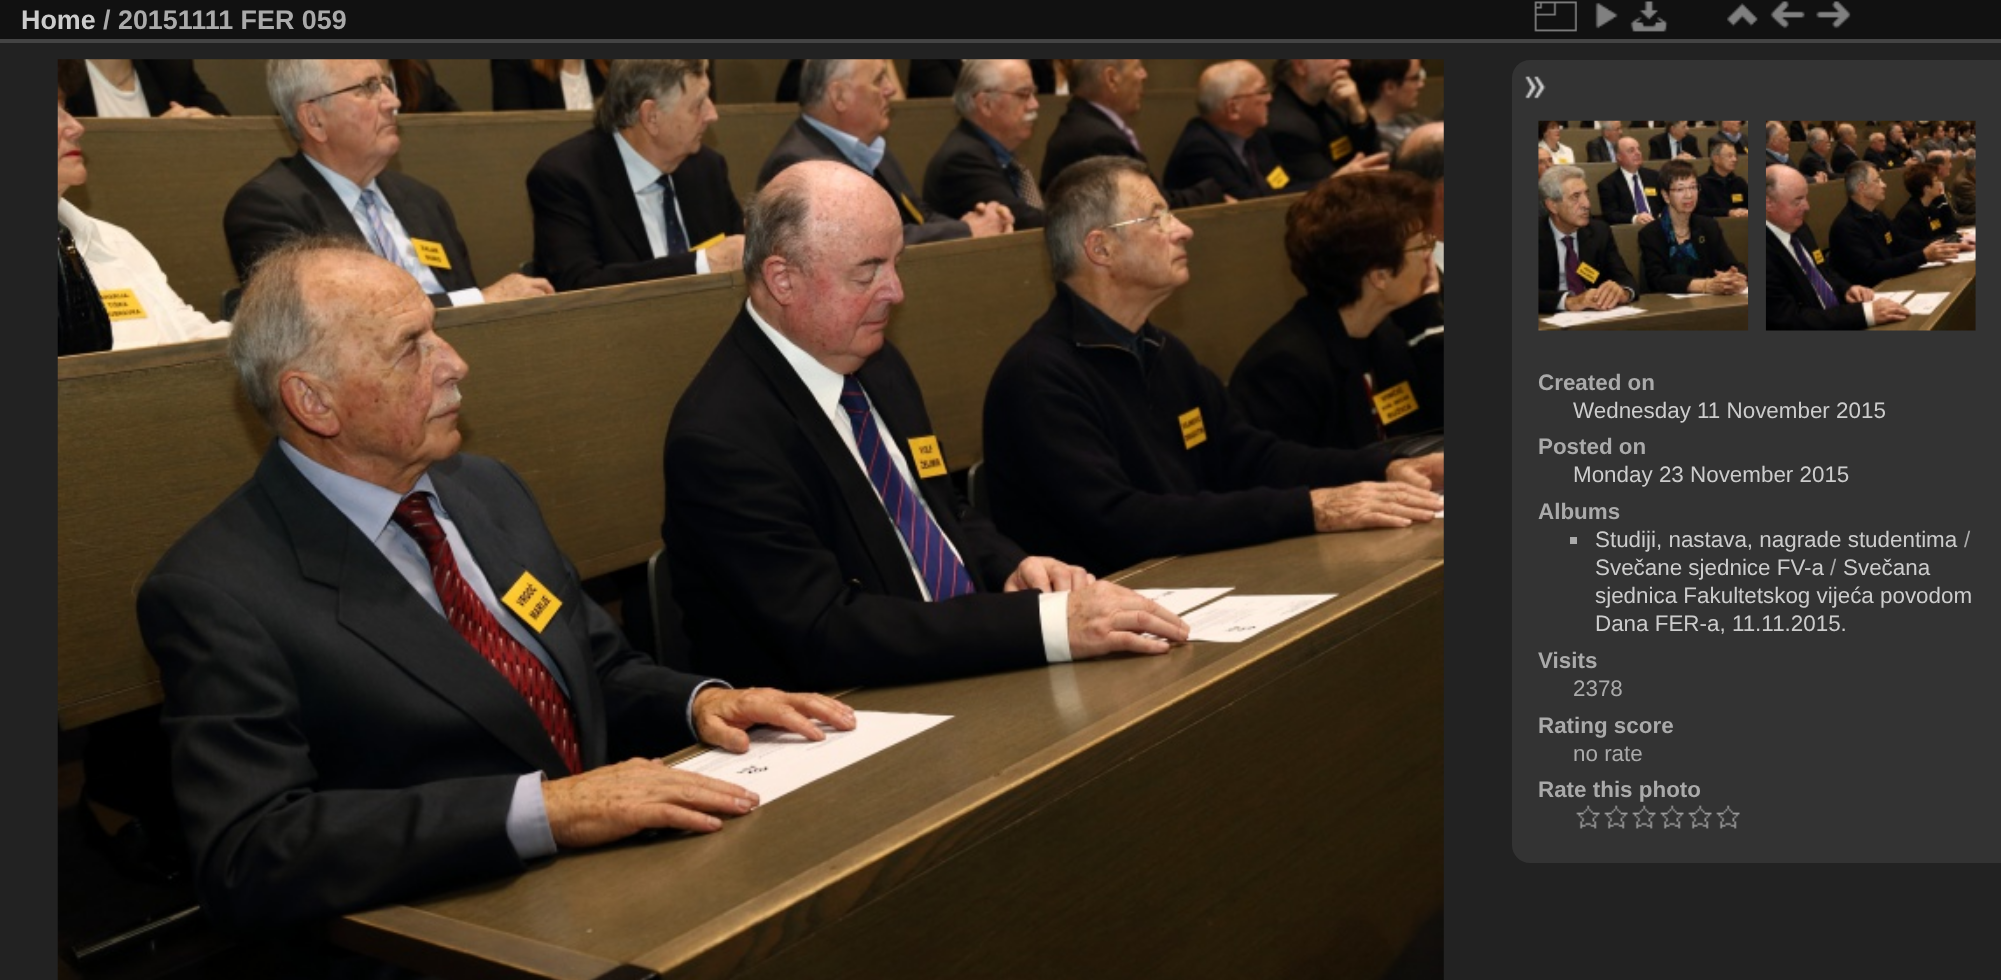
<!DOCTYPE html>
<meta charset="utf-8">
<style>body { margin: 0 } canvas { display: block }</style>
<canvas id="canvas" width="2001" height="980"></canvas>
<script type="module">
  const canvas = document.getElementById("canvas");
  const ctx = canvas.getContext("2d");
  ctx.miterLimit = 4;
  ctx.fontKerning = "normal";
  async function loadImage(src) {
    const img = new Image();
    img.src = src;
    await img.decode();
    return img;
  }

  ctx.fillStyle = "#222222";
  ctx.fillRect(0, 0, 2001, 980);
  ctx.fillStyle = "#111111";
  ctx.fillRect(0, 0, 2001, 39);
  ctx.fillStyle = "#444444";
  ctx.fillRect(0, 39, 2001, 4);
  ctx.font = "bold 26.9px Liberation Sans";
  ctx.fillStyle = "#cccccc";
  ctx.fillText("Home", 21, 29);
  ctx.fillStyle = "#aaaaaa";
  ctx.fillText("/ 20151111 FER 059", 103, 29);
  ctx.drawImage(await loadImage("img1.png"), 1534, 1, 43, 31);
  ctx.drawImage(await loadImage("img2.png"), 1595, 2, 23, 27);
  ctx.drawImage(await loadImage("img3.png"), 1630, 1, 38, 31);
  ctx.drawImage(await loadImage("img4.png"), 1727, 3, 31, 24);
  ctx.drawImage(await loadImage("img5.png"), 1770, 1, 35, 28);
  ctx.drawImage(await loadImage("img6.png"), 1816, 1, 35, 28);
  ctx.drawImage(await loadImage("img7.png"), 57, 59, 1387, 921);
  ctx.fillStyle = "#333333";
  ctx.beginPath();
  ctx.moveTo(1530, 60);
  ctx.lineTo(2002, 60);
  ctx.lineTo(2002, 863);
  ctx.lineTo(1530, 863);
  ctx.bezierCurveTo(1520, 863, 1512, 855, 1512, 845);
  ctx.lineTo(1512, 78);
  ctx.bezierCurveTo(1512, 68, 1520, 60, 1530, 60);
  ctx.closePath();
  ctx.fill();
  ctx.drawImage(await loadImage("img8.png"), 1525, 76, 21, 23);
  ctx.drawImage(await loadImage("img9.png"), 1538, 120, 211, 211);
  ctx.drawImage(await loadImage("img10.png"), 1765, 120, 211, 211);
  ctx.font = "bold 22.4px Liberation Sans";
  ctx.fillStyle = "#aaaaaa";
  ctx.fillText("Created on", 1538, 390);
  ctx.font = "22.4px Liberation Sans";
  ctx.fillStyle = "#cccccc";
  ctx.fillText("Wednesday 11 November 2015", 1573, 418);
  ctx.font = "bold 22.4px Liberation Sans";
  ctx.fillStyle = "#aaaaaa";
  ctx.fillText("Posted on", 1538, 454);
  ctx.font = "22.4px Liberation Sans";
  ctx.fillStyle = "#cccccc";
  ctx.fillText("Monday 23 November 2015", 1573, 482);
  ctx.font = "bold 22.4px Liberation Sans";
  ctx.fillStyle = "#aaaaaa";
  ctx.fillText("Albums", 1538, 519);
  ctx.fillRect(1570, 537, 7, 7);
  ctx.font = "22.4px Liberation Sans";
  ctx.fillStyle = "#cccccc";
  ctx.fillText("Studiji, nastava, nagrade studentima", 1595, 547);
  ctx.fillStyle = "#aaaaaa";
  ctx.fillText("/", 1964, 547);
  ctx.fillStyle = "#cccccc";
  ctx.fillText("Svečane sjednice FV-a", 1595, 575);
  ctx.fillStyle = "#aaaaaa";
  ctx.fillText("/", 1830, 575);
  ctx.fillStyle = "#cccccc";
  ctx.fillText("Svečana", 1843, 575);
  ctx.fillText("sjednica Fakultetskog vijeća povodom", 1595, 603);
  ctx.fillText("Dana FER-a, 11.11.2015.", 1595, 631);
  ctx.font = "bold 22.4px Liberation Sans";
  ctx.fillStyle = "#aaaaaa";
  ctx.fillText("Visits", 1538, 668);
  ctx.font = "22.4px Liberation Sans";
  ctx.fillText("2378", 1573, 696);
  ctx.font = "bold 22.4px Liberation Sans";
  ctx.fillText("Rating score", 1538, 733);
  ctx.font = "22.4px Liberation Sans";
  ctx.fillText("no rate", 1573, 761);
  ctx.font = "bold 22.4px Liberation Sans";
  ctx.fillText("Rate this photo", 1538, 797);
  ctx.drawImage(await loadImage("img11.png"), 1576, 805, 24, 24);
  ctx.drawImage(await loadImage("img11.png"), 1604, 805, 24, 24);
  ctx.drawImage(await loadImage("img12.png"), 1632, 805, 24, 24);
  ctx.drawImage(await loadImage("img12.png"), 1660, 805, 24, 24);
  ctx.drawImage(await loadImage("img12.png"), 1688, 805, 24, 24);
  ctx.drawImage(await loadImage("img12.png"), 1716, 805, 24, 24);
</script>
